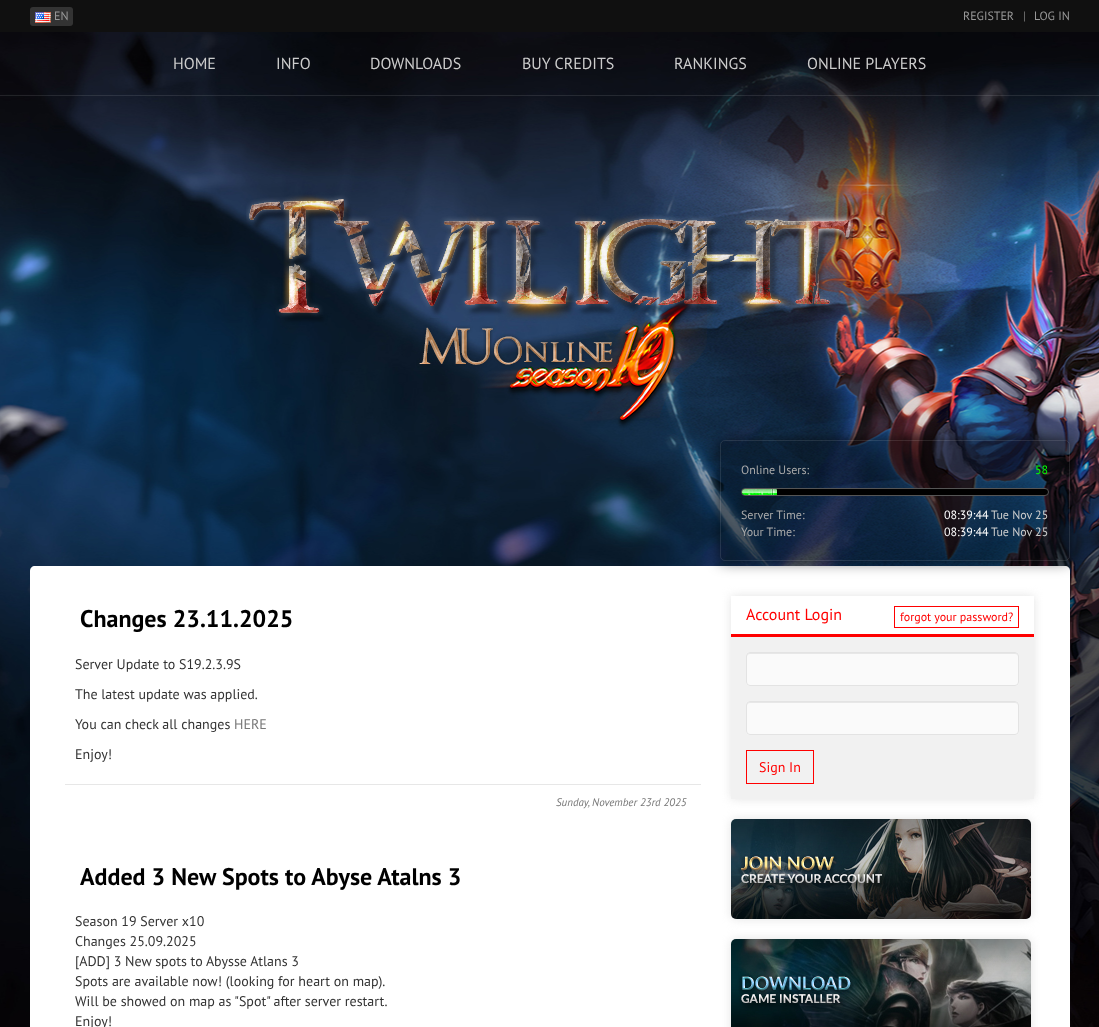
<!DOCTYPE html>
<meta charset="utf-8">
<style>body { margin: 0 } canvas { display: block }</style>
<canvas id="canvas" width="1099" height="1027"></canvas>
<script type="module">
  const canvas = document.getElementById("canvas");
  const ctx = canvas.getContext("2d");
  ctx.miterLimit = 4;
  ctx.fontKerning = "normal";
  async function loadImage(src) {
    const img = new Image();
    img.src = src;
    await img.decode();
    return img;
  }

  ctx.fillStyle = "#ffffff";
  ctx.fillRect(0, 0, 1099, 1027);
  ctx.drawImage(await loadImage("img1.png"), 0, 32, 1099, 995);
  ctx.fillStyle = "#101010";
  ctx.fillRect(0, 0, 1099, 32);
  ctx.fillStyle = "#333333";
  ctx.beginPath();
  ctx.roundRect(30, 7, 43, 19, 3);
  ctx.fill();
  ctx.drawImage(await loadImage("img2.png"), 35, 12, 16, 11);
  ctx.font = "12px PT Sans";
  ctx.fillStyle = "#999999";
  ctx.fillText("EN", 54, 20);
  ctx.fillText("REGISTER", 963, 20);
  ctx.fillStyle = "#777777";
  ctx.fillText("|", 1023, 20);
  ctx.fillStyle = "#999999";
  ctx.fillText("LOG IN", 1034, 20);
  ctx.fillStyle = "rgba(255, 255, 255, 0.1)";
  ctx.fillRect(0, 95, 1099, 1);
  ctx.font = "16px PT Sans";
  ctx.fillStyle = "#cccccc";
  ctx.fillText("HOME", 173, 69);
  ctx.fillText("INFO", 276, 69);
  ctx.fillText("DOWNLOADS", 370, 69);
  ctx.fillText("BUY CREDITS", 522, 69);
  ctx.fillText("RANKINGS", 674, 69);
  ctx.fillText("ONLINE PLAYERS", 807, 69);
  ctx.drawImage(await loadImage("img3.png"), 246, 176, 607, 252);
  ctx.fillStyle = "#ffffff";
  ctx.beginPath();
  ctx.moveTo(35, 566);
  ctx.lineTo(1065, 566);
  ctx.bezierCurveTo(1068, 566, 1070, 568, 1070, 571);
  ctx.lineTo(1070, 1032);
  ctx.lineTo(30, 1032);
  ctx.lineTo(30, 571);
  ctx.bezierCurveTo(30, 568, 32, 566, 35, 566);
  ctx.closePath();
  ctx.fill();
  ctx.save();
  ctx.beginPath();
  ctx.moveTo(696, 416);
  ctx.lineTo(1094, 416);
  ctx.lineTo(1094, 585);
  ctx.lineTo(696, 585);
  ctx.closePath();
  ctx.moveTo(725, 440);
  ctx.lineTo(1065, 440);
  ctx.bezierCurveTo(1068, 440, 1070, 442, 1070, 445);
  ctx.lineTo(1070, 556);
  ctx.bezierCurveTo(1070, 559, 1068, 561, 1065, 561);
  ctx.lineTo(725, 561);
  ctx.bezierCurveTo(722, 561, 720, 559, 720, 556);
  ctx.lineTo(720, 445);
  ctx.bezierCurveTo(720, 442, 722, 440, 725, 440);
  ctx.closePath();
  ctx.clip("evenodd");
  ctx.fillStyle = "rgba(0, 0, 0, 0.7)";
  ctx.filter = "blur(7.5px)";
  ctx.beginPath();
  ctx.roundRect(720, 440, 350, 121, 5);
  ctx.fill();
  ctx.filter = "none";
  ctx.restore();
  ctx.fillStyle = "rgba(0, 0, 0, 0.3)";
  ctx.beginPath();
  ctx.roundRect(720, 440, 350, 121, 5);
  ctx.fill();
  ctx.beginPath();
  ctx.roundRect(720.5, 440.5, 349, 120, 4.5);
  ctx.strokeStyle = "rgba(255, 255, 255, 0.1)";
  ctx.stroke();
  ctx.font = "12px PT Sans";
  ctx.fillStyle = "#aaaaaa";
  ctx.fillText("Online Users:", 741, 474);
  ctx.fillStyle = "#00ff00";
  ctx.fillText("58", 1035, 474);
  ctx.fillStyle = "#000000";
  ctx.beginPath();
  ctx.roundRect(741.5, 488.5, 307, 7, 3.5);
  ctx.fill();
  ctx.strokeStyle = "#555555";
  ctx.stroke();
  ctx.drawImage(await loadImage("img4.png"), 742, 489, 35, 6);
  ctx.fillStyle = "#aaaaaa";
  ctx.fillText("Server Time:", 741, 519);
  ctx.fillStyle = "#ffffff";
  ctx.fillText("08:39:44", 944, 519);
  ctx.fillStyle = "#cccccc";
  ctx.fillText("Tue Nov 25", 991, 519);
  ctx.fillStyle = "#aaaaaa";
  ctx.fillText("Your Time:", 741, 536);
  ctx.fillStyle = "#ffffff";
  ctx.fillText("08:39:44", 944, 536);
  ctx.fillStyle = "#cccccc";
  ctx.fillText("Tue Nov 25", 991, 536);
  ctx.font = "bold 24px PT Sans";
  ctx.fillStyle = "#000000";
  ctx.fillText("Changes 23.11.2025", 80, 627);
  ctx.font = "14px PT Sans";
  ctx.fillStyle = "#333333";
  ctx.fillText("Server Update to S19.2.3.9S", 75, 669);
  ctx.fillText("The latest update was applied.", 75, 699);
  ctx.fillText("You can check all changes", 75, 729);
  ctx.fillStyle = "#777777";
  ctx.fillText("HERE", 234, 729);
  ctx.fillStyle = "#333333";
  ctx.fillText("Enjoy!", 75, 759);
  ctx.fillStyle = "#e7e7e7";
  ctx.fillRect(65, 784, 636, 1);
  ctx.font = "italic 11px PT Sans";
  ctx.fillStyle = "#777777";
  ctx.fillText("Sunday, November 23rd 2025", 556, 806);
  ctx.font = "bold 24px PT Sans";
  ctx.fillStyle = "#000000";
  ctx.fillText("Added 3 New Spots to Abyse Atalns 3", 80, 885);
  ctx.font = "14px PT Sans";
  ctx.fillStyle = "#333333";
  ctx.fillText("Season 19 Server x10", 75, 926);
  ctx.fillText("Changes 25.09.2025", 75, 946);
  ctx.fillText("[ADD] 3 New spots to Abysse Atlans 3", 75, 966);
  ctx.fillText("Spots are available now! (looking for heart on map).", 75, 986);
  ctx.fillText("Will be showed on map as \"Spot\" after server restart.", 75, 1006);
  ctx.fillText("Enjoy!", 75, 1026);
  ctx.fillStyle = "#e3e3e3";
  ctx.filter = "blur(5px)";
  ctx.beginPath();
  ctx.rect(731, 596, 303, 203);
  ctx.fill();
  ctx.filter = "none";
  ctx.fillStyle = "#f1f1f1";
  ctx.fillRect(731, 637, 303, 162);
  ctx.fillStyle = "#ffffff";
  ctx.fillRect(731, 596, 303, 38);
  ctx.fillStyle = "#ff0000";
  ctx.fillRect(731, 634, 303, 3);
  ctx.font = "16px PT Sans";
  ctx.fillText("Account Login", 746, 620);
  ctx.strokeStyle = "#ff0000";
  ctx.strokeRect(894.5, 606.5, 124, 21);
  ctx.font = "12px PT Sans";
  ctx.fillText("forgot your password?", 900, 621);
  ctx.fillStyle = "#fafafa";
  ctx.beginPath();
  ctx.roundRect(746, 652, 273, 34, 4);
  ctx.fill();
  ctx.fillStyle = "#e7e7e7";
  ctx.beginPath();
  ctx.moveTo(750, 654);
  ctx.lineTo(1015, 654);
  ctx.bezierCurveTo(1017, 654, 1018, 655, 1018, 657);
  ctx.lineTo(1018, 656);
  ctx.bezierCurveTo(1018, 654, 1017, 653, 1015, 653);
  ctx.lineTo(750, 653);
  ctx.bezierCurveTo(748, 653, 747, 654, 747, 656);
  ctx.lineTo(747, 657);
  ctx.bezierCurveTo(747, 655, 748, 654, 750, 654);
  ctx.closePath();
  ctx.fill();
  ctx.beginPath();
  ctx.roundRect(746.5, 652.5, 272, 33, 3.5);
  ctx.strokeStyle = "#e3e3e3";
  ctx.stroke();
  ctx.fillStyle = "#fafafa";
  ctx.beginPath();
  ctx.roundRect(746, 701, 273, 34, 4);
  ctx.fill();
  ctx.fillStyle = "#e7e7e7";
  ctx.beginPath();
  ctx.moveTo(750, 703);
  ctx.lineTo(1015, 703);
  ctx.bezierCurveTo(1017, 703, 1018, 704, 1018, 706);
  ctx.lineTo(1018, 705);
  ctx.bezierCurveTo(1018, 703, 1017, 702, 1015, 702);
  ctx.lineTo(750, 702);
  ctx.bezierCurveTo(748, 702, 747, 703, 747, 705);
  ctx.lineTo(747, 706);
  ctx.bezierCurveTo(747, 704, 748, 703, 750, 703);
  ctx.closePath();
  ctx.fill();
  ctx.beginPath();
  ctx.roundRect(746.5, 701.5, 272, 33, 3.5);
  ctx.stroke();
  ctx.strokeStyle = "#ff0000";
  ctx.strokeRect(746.5, 750.5, 67, 33);
  ctx.font = "14px PT Sans";
  ctx.fillStyle = "#ff0000";
  ctx.fillText("Sign In", 759, 772);
  ctx.fillStyle = "#e3e3e3";
  ctx.filter = "blur(5px)";
  ctx.beginPath();
  ctx.roundRect(731, 819, 300, 100, 5);
  ctx.fill();
  ctx.filter = "none";
  ctx.drawImage(await loadImage("img5.png"), 731, 819, 300, 100);
  ctx.filter = "blur(5px)";
  ctx.beginPath();
  ctx.roundRect(731, 939, 300, 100, 5);
  ctx.fill();
  ctx.filter = "none";
  ctx.drawImage(await loadImage("img6.png"), 731, 939, 300, 88);
</script>
